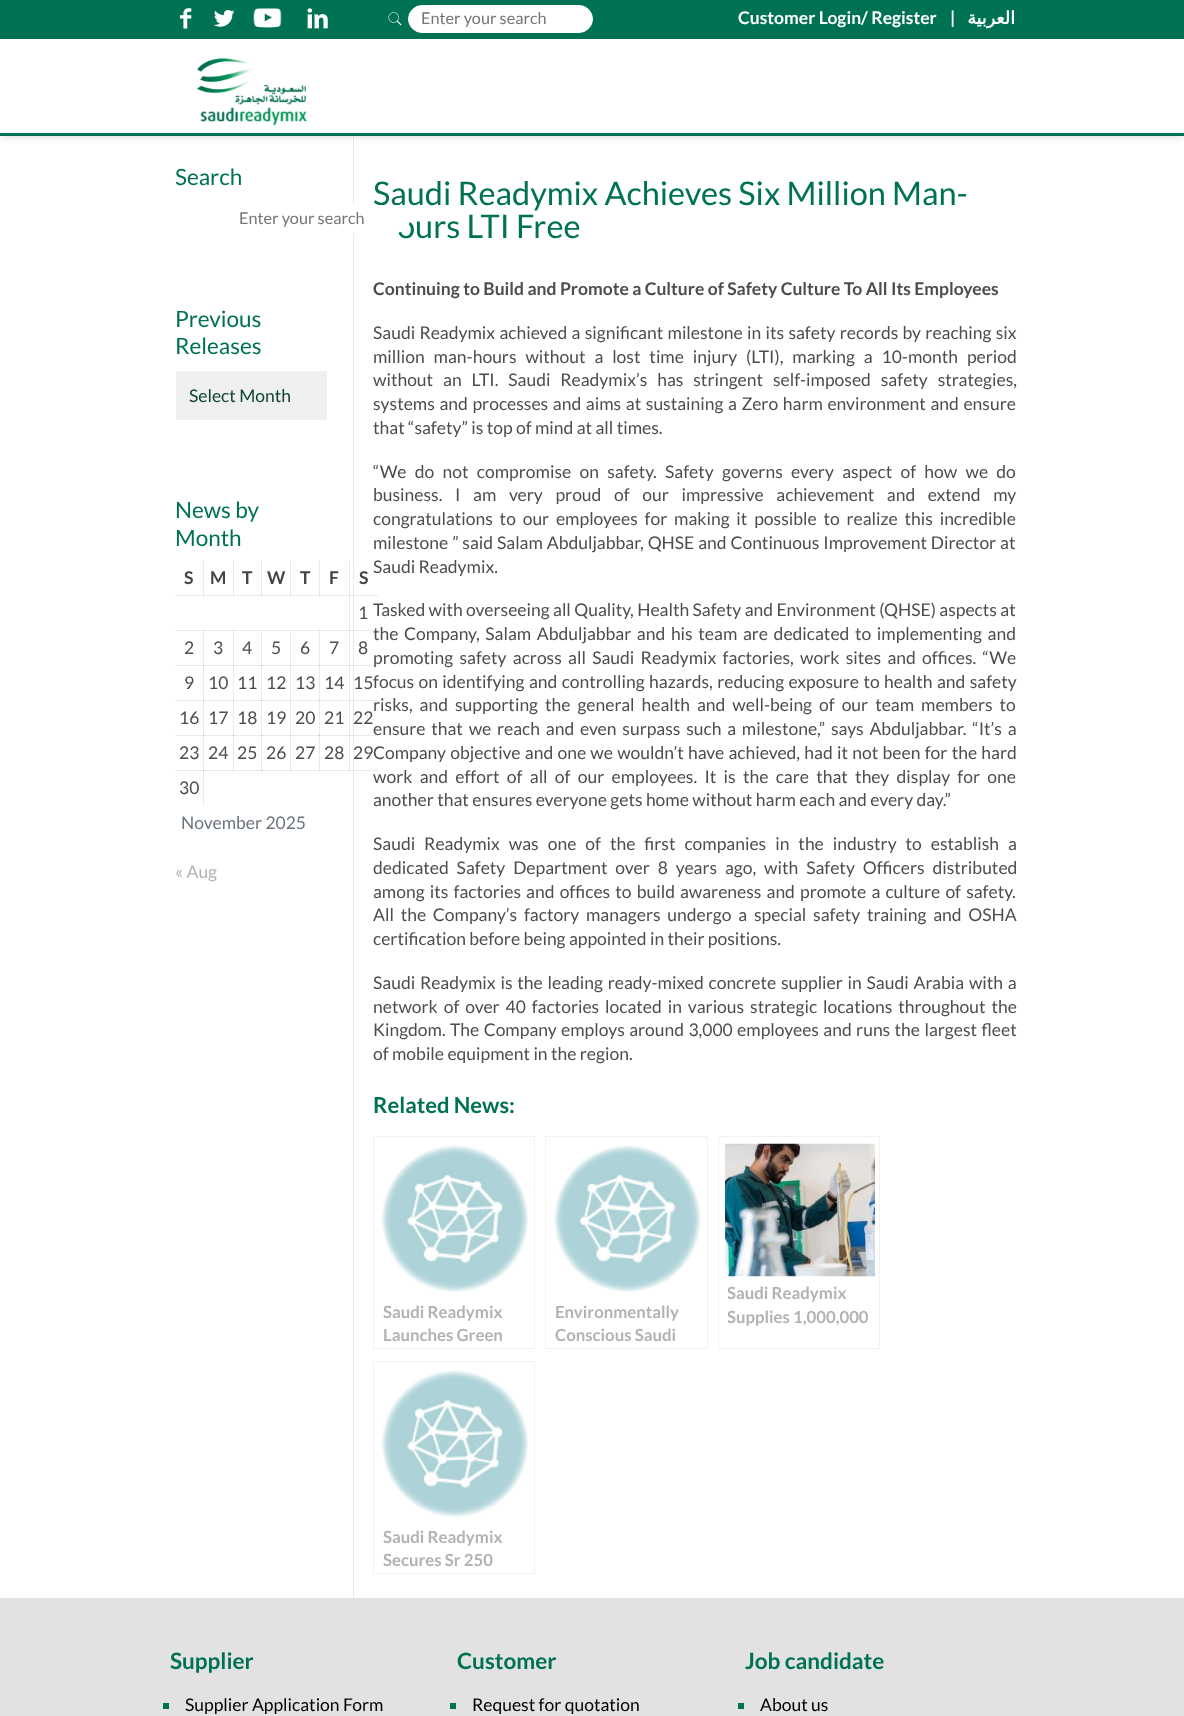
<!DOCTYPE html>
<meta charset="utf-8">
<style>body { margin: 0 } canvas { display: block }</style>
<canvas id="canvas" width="1184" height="1716"></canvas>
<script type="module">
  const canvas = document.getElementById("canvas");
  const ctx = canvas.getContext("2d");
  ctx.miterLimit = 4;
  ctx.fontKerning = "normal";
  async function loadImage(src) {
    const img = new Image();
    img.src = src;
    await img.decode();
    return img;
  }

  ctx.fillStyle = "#ffffff";
  ctx.fillRect(0, 0, 1184, 1716);
  ctx.fillStyle = "#ebebeb";
  ctx.fillRect(349, 770, 29, 1);
  ctx.fillStyle = "#007254";
  ctx.fillRect(0, 0, 1184, 39);
  ctx.drawImage(await loadImage("img1.png"), 180, 8, 12, 21);
  ctx.drawImage(await loadImage("img2.png"), 214, 10, 21, 17);
  ctx.drawImage(await loadImage("img3.png"), 253, 8, 29, 20);
  ctx.drawImage(await loadImage("img4.png"), 307, 8, 21, 21);
  ctx.drawImage(await loadImage("img5.png"), 388, 12, 14, 14);
  ctx.fillStyle = "#ffffff";
  ctx.beginPath();
  ctx.roundRect(408.5, 5.5, 184, 27, 13.5);
  ctx.fill();
  ctx.strokeStyle = "#ffffff";
  ctx.stroke();
  ctx.font = "16.25px Lato";
  ctx.fillStyle = "#757575";
  ctx.fillText("Enter your search", 421, 24);
  ctx.font = "bold 17.5px Lato";
  ctx.fillStyle = "#ffffff";
  ctx.fillText("Customer Login/ Register", 738, 24);
  ctx.fillText("|", 950, 24);
  ctx.direction = "rtl";
  ctx.font = "bold 17.5px DejaVu Sans";
  ctx.fillText("العربية", 1015, 24);
  ctx.fillStyle = "#ebebeb";
  ctx.fillRect(353, 136, 1, 1462);
  ctx.fillStyle = "rgba(0, 0, 0, 0.1)";
  ctx.filter = "blur(3px)";
  ctx.beginPath();
  ctx.rect(0, 41, 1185, 97);
  ctx.fill();
  ctx.filter = "none";
  ctx.fillStyle = "#ffffff";
  ctx.fillRect(0, 39, 1184, 94);
  ctx.fillStyle = "#007154";
  ctx.fillRect(0, 133, 1184, 3);
  ctx.drawImage(await loadImage("img6.png"), 196, 58, 111, 68);
  ctx.fillStyle = "#d8d8d8";
  ctx.fillRect(353, 770, 1, 1);
  ctx.direction = "ltr";
  ctx.font = "22.5px Lato";
  ctx.fillStyle = "#007254";
  ctx.fillText("Search", 175, 185);
  ctx.font = "32.5px Lato";
  ctx.fillText("Saudi Readymix Achieves Six Million Man-", 373, 205);
  ctx.fillText("ours LTI Free", 397, 238);
  ctx.fillStyle = "#ffffff";
  ctx.beginPath();
  ctx.roundRect(225.5, 205.5, 184, 27, 13.5);
  ctx.fill();
  ctx.stroke();
  ctx.font = "16.25px Lato";
  ctx.fillStyle = "#757575";
  ctx.fillText("Enter your search", 239, 224);
  ctx.font = "22.5px Lato";
  ctx.fillStyle = "#007254";
  ctx.fillText("Previous", 175, 327);
  ctx.fillText("Releases", 175, 354);
  ctx.fillStyle = "#efefef";
  ctx.fillRect(176, 371, 151, 49);
  ctx.font = "17.5px Lato";
  ctx.fillStyle = "#0d442f";
  ctx.fillText("Select Month", 189, 402);
  ctx.font = "22.5px Lato";
  ctx.fillStyle = "#007254";
  ctx.fillText("News by", 175, 518);
  ctx.fillText("Month", 175, 546);
  ctx.fillStyle = "#fdfdfd";
  ctx.fillRect(349, 770, 4, 1);
  ctx.fillStyle = "#e9e9e9";
  ctx.fillRect(175, 770, 29, 1);
  ctx.fillRect(203, 735, 1, 36);
  ctx.fillRect(203, 770, 31, 1);
  ctx.fillRect(233, 735, 1, 36);
  ctx.fillRect(233, 770, 30, 1);
  ctx.fillRect(261, 735, 1, 36);
  ctx.fillRect(261, 770, 30, 1);
  ctx.fillRect(290, 735, 1, 36);
  ctx.fillRect(290, 770, 30, 1);
  ctx.fillRect(319, 735, 1, 36);
  ctx.fillRect(319, 770, 31, 1);
  ctx.fillRect(349, 735, 1, 36);
  ctx.fillStyle = "rgba(0, 0, 0, 0.08)";
  ctx.fillRect(349, 735, 29, 1);
  ctx.fillRect(349, 700, 1, 36);
  ctx.fillRect(349, 700, 29, 1);
  ctx.fillRect(349, 665, 1, 36);
  ctx.fillRect(349, 665, 29, 1);
  ctx.fillRect(349, 630, 1, 36);
  ctx.fillRect(349, 630, 29, 1);
  ctx.fillRect(349, 595, 1, 36);
  ctx.fillRect(349, 595, 29, 1);
  ctx.fillRect(349, 560, 1, 36);
  ctx.fillRect(319, 595, 31, 1);
  ctx.fillRect(319, 560, 1, 36);
  ctx.fillRect(290, 595, 30, 1);
  ctx.fillRect(290, 560, 1, 36);
  ctx.fillRect(261, 595, 30, 1);
  ctx.fillRect(261, 560, 1, 36);
  ctx.fillRect(233, 595, 30, 1);
  ctx.fillRect(233, 560, 1, 36);
  ctx.fillRect(203, 595, 31, 1);
  ctx.fillRect(203, 560, 1, 36);
  ctx.fillRect(175, 595, 29, 1);
  ctx.font = "bold 17.5px Lato";
  ctx.fillStyle = "#444444";
  ctx.fillText("S", 184, 584);
  ctx.fillText("M", 210, 584);
  ctx.fillText("T", 242, 584);
  ctx.fillText("W", 267, 584);
  ctx.fillText("T", 300, 584);
  ctx.fillText("F", 329, 584);
  ctx.fillText("S", 359, 584);
  ctx.fillStyle = "rgba(0, 0, 0, 0.08)";
  ctx.fillRect(319, 735, 31, 1);
  ctx.fillRect(319, 700, 1, 36);
  ctx.fillRect(319, 700, 31, 1);
  ctx.fillRect(319, 665, 1, 36);
  ctx.fillRect(319, 665, 31, 1);
  ctx.fillRect(319, 630, 1, 36);
  ctx.fillRect(290, 735, 30, 1);
  ctx.fillRect(290, 700, 1, 36);
  ctx.fillRect(290, 700, 30, 1);
  ctx.fillRect(290, 665, 1, 36);
  ctx.fillRect(290, 665, 30, 1);
  ctx.fillRect(290, 630, 1, 36);
  ctx.fillRect(261, 735, 30, 1);
  ctx.fillRect(261, 700, 1, 36);
  ctx.fillRect(261, 700, 30, 1);
  ctx.fillRect(261, 665, 1, 36);
  ctx.fillRect(261, 665, 30, 1);
  ctx.fillRect(261, 630, 1, 36);
  ctx.fillRect(233, 735, 30, 1);
  ctx.fillRect(233, 700, 1, 36);
  ctx.fillRect(233, 700, 30, 1);
  ctx.fillRect(233, 665, 1, 36);
  ctx.fillRect(233, 665, 30, 1);
  ctx.fillRect(233, 630, 1, 36);
  ctx.fillRect(203, 735, 31, 1);
  ctx.fillRect(203, 700, 1, 36);
  ctx.fillRect(203, 700, 31, 1);
  ctx.fillRect(203, 665, 1, 36);
  ctx.fillRect(203, 665, 31, 1);
  ctx.fillRect(203, 630, 1, 36);
  ctx.fillRect(175, 630, 175, 1);
  ctx.font = "17.5px Lato";
  ctx.fillStyle = "#4d4d4d";
  ctx.fillText("1", 358, 619);
  ctx.fillStyle = "rgba(0, 0, 0, 0.08)";
  ctx.fillRect(175, 665, 29, 1);
  ctx.fillStyle = "#4d4d4d";
  ctx.fillText("2", 184, 654);
  ctx.fillText("3", 213, 654);
  ctx.fillText("4", 242, 654);
  ctx.fillText("5", 271, 654);
  ctx.fillText("6", 300, 654);
  ctx.fillText("7", 329, 654);
  ctx.fillText("8", 358, 654);
  ctx.fillStyle = "rgba(0, 0, 0, 0.08)";
  ctx.fillRect(175, 700, 29, 1);
  ctx.fillStyle = "#4d4d4d";
  ctx.fillText("9", 184, 689);
  ctx.fillText("10", 208, 689);
  ctx.fillText("11", 237, 689);
  ctx.fillText("12", 266, 689);
  ctx.fillText("13", 295, 689);
  ctx.fillText("14", 324, 689);
  ctx.wordSpacing = "1px";
  ctx.fillText("focus on identifying and controlling hazards, reducing exposure to health and safety", 373, 688);
  ctx.wordSpacing = "0px";
  ctx.fillText("15", 353, 689);
  ctx.fillStyle = "rgba(0, 0, 0, 0.08)";
  ctx.fillRect(175, 735, 29, 1);
  ctx.fillStyle = "#4d4d4d";
  ctx.fillText("16", 179, 724);
  ctx.fillText("17", 208, 724);
  ctx.fillText("18", 237, 724);
  ctx.fillText("19", 266, 724);
  ctx.fillText("20", 295, 724);
  ctx.fillText("21", 324, 724);
  ctx.fillText("22", 353, 724);
  ctx.fillText("23", 179, 759);
  ctx.fillText("24", 208, 759);
  ctx.fillText("25", 237, 759);
  ctx.fillText("26", 266, 759);
  ctx.fillText("27", 295, 759);
  ctx.fillText("28", 324, 759);
  ctx.fillText("29", 353, 759);
  ctx.fillStyle = "#e9e9e9";
  ctx.fillRect(203, 770, 1, 35);
  ctx.fillStyle = "#b5b5b5";
  ctx.fillRect(203, 770, 1, 1);
  ctx.fillStyle = "#4d4d4d";
  ctx.fillText("30", 179, 794);
  ctx.fillStyle = "#6c757d";
  ctx.fillText("November 2025", 181, 829);
  ctx.fillStyle = "#b2b2b2";
  ctx.fillText("« Aug", 175, 878);
  ctx.fillStyle = "#c5c5c5";
  ctx.fillRect(233, 770, 1, 1);
  ctx.fillStyle = "#d6d6d6";
  ctx.fillRect(261, 770, 2, 1);
  ctx.fillStyle = "#c5c5c5";
  ctx.fillRect(261, 770, 1, 1);
  ctx.fillRect(290, 770, 1, 1);
  ctx.fillRect(319, 770, 1, 1);
  ctx.fillStyle = "#e9e9e9";
  ctx.fillRect(349, 770, 4, 1);
  ctx.fillStyle = "#c5c5c5";
  ctx.fillRect(349, 770, 1, 1);
  ctx.font = "bold 17.5px Lato";
  ctx.fillStyle = "#4d4d4d";
  ctx.fillText("Continuing to Build and Promote a Culture of Safety Culture To All Its Employees", 373, 295);
  ctx.wordSpacing = "0.9px";
  ctx.font = "17.5px Lato";
  ctx.fillText("Saudi Readymix achieved a significant milestone in its safety records by reaching six", 373, 339);
  ctx.wordSpacing = "5.5px";
  ctx.fillText("million man-hours without a lost time injury (LTI), marking a 10-month period", 373, 363);
  ctx.wordSpacing = "6.5px";
  ctx.fillText("without an LTI. Saudi Readymix’s has stringent self-imposed safety strategies,", 373, 386);
  ctx.wordSpacing = "1.25px";
  ctx.fillText("systems and processes and aims at sustaining a Zero harm environment and ensure", 373, 410);
  ctx.wordSpacing = "0px";
  ctx.fillText("that “safety” is top of mind at all times.", 373, 434);
  ctx.wordSpacing = "4.9px";
  ctx.fillText("“We do not compromise on safety. Safety governs every aspect of how we do", 373, 478);
  ctx.wordSpacing = "9.25px";
  ctx.fillText("business. I am very proud of our impressive achievement and extend my", 373, 501);
  ctx.wordSpacing = "3.4px";
  ctx.fillText("congratulations to our employees for making it possible to realize this incredible", 373, 525);
  ctx.wordSpacing = "0.5px";
  ctx.fillText("milestone ” said Salam Abduljabbar, QHSE and Continuous Improvement Director at", 373, 549);
  ctx.wordSpacing = "0px";
  ctx.fillText("Saudi Readymix.", 373, 573);
  ctx.fillText("Tasked with overseeing all Quality, Health Safety and Environment (QHSE) aspects at", 373, 616);
  ctx.wordSpacing = "2.25px";
  ctx.fillText("the Company, Salam Abduljabbar and his team are dedicated to implementing and", 373, 640);
  ctx.wordSpacing = "2.9px";
  ctx.fillText("promoting safety across all Saudi Readymix factories, work sites and offices. “We", 373, 664);
  ctx.wordSpacing = "3.6px";
  ctx.fillText("risks, and supporting the general health and well-being of our team members to", 373, 711);
  ctx.wordSpacing = "2.4px";
  ctx.fillText("ensure that we reach and even surpass such a milestone,” says Abduljabbar. “It’s a", 373, 735);
  ctx.wordSpacing = "0.9px";
  ctx.fillText("Company objective and one we wouldn’t have achieved, had it not been for the hard", 373, 759);
  ctx.wordSpacing = "3.9px";
  ctx.fillText("work and effort of all of our employees. It is the care that they display for one", 373, 783);
  ctx.wordSpacing = "0px";
  ctx.fillText("another that ensures everyone gets home without harm each and every day.”", 373, 806);
  ctx.wordSpacing = "5.6px";
  ctx.fillText("Saudi Readymix was one of the first companies in the industry to establish a", 373, 850);
  ctx.wordSpacing = "4.5px";
  ctx.fillText("dedicated Safety Department over 8 years ago, with Safety Officers distributed", 373, 874);
  ctx.wordSpacing = "1.75px";
  ctx.fillText("among its factories and offices to build awareness and promote a culture of safety.", 373, 898);
  ctx.wordSpacing = "3.4px";
  ctx.fillText("All the Company’s factory managers undergo a special safety training and OSHA", 373, 921);
  ctx.wordSpacing = "0px";
  ctx.fillText("certification before being appointed in their positions.", 373, 945);
  ctx.wordSpacing = "1.4px";
  ctx.fillText("Saudi Readymix is the leading ready-mixed concrete supplier in Saudi Arabia with a", 373, 989);
  ctx.wordSpacing = "2.5px";
  ctx.fillText("network of over 40 factories located in various strategic locations throughout the", 373, 1013);
  ctx.wordSpacing = "1px";
  ctx.fillText("Kingdom. The Company employs around 3,000 employees and runs the largest fleet", 373, 1036);
  ctx.wordSpacing = "0px";
  ctx.fillText("of mobile equipment in the region.", 373, 1060);
  ctx.font = "bold 22px Lato";
  ctx.fillStyle = "#007254";
  ctx.fillText("Related News:", 373, 1113);
  ctx.strokeStyle = "#f2f2f2";
  ctx.strokeRect(373.5, 1136.5, 161, 212);
  ctx.drawImage(await loadImage("img7.png"), 381, 1145, 147, 147);
  ctx.font = "bold 16.75px Lato";
  ctx.fillStyle = "#b2b2b2";
  ctx.fillText("Saudi Readymix", 383, 1318);
  ctx.fillText("Launches Green", 383, 1341);
  ctx.strokeRect(545.5, 1136.5, 162, 212);
  ctx.drawImage(await loadImage("img8.png"), 554, 1145, 147, 147);
  ctx.fillText("Environmentally", 555, 1318);
  ctx.fillText("Conscious Saudi", 555, 1341);
  ctx.strokeRect(718.5, 1136.5, 161, 212);
  ctx.drawImage(await loadImage("img9.png"), 725, 1143, 150, 134);
  ctx.save();
  ctx.beginPath();
  ctx.rect(728, 1283, 150, 46);
  ctx.clip();
  ctx.fillText("Saudi Readymix", 727, 1299);
  ctx.fillText("Supplies 1,000,000", 727, 1323);
  ctx.restore();
  ctx.strokeRect(373.5, 1361.5, 161, 212);
  ctx.drawImage(await loadImage("img10.png"), 381, 1370, 147, 147);
  ctx.fillText("Saudi Readymix", 383, 1543);
  ctx.fillText("Secures Sr 250", 383, 1566);
  ctx.fillStyle = "#e2e2e2";
  ctx.fillRect(0, 1598, 1184, 118);
  ctx.font = "bold 22.5px Lato";
  ctx.fillStyle = "#007254";
  ctx.fillText("Supplier", 170, 1669);
  ctx.fillRect(163, 1703, 6, 6);
  ctx.font = "17.5px Lato";
  ctx.fillStyle = "#000000";
  ctx.fillText("Supplier Application Form", 185, 1711);
  ctx.font = "bold 22.5px Lato";
  ctx.fillStyle = "#007254";
  ctx.fillText("Customer", 457, 1669);
  ctx.fillRect(450, 1703, 6, 6);
  ctx.font = "17.5px Lato";
  ctx.fillStyle = "#000000";
  ctx.fillText("Request for quotation", 472, 1711);
  ctx.font = "bold 22.5px Lato";
  ctx.fillStyle = "#007254";
  ctx.fillText("Job candidate", 745, 1669);
  ctx.fillRect(738, 1703, 6, 6);
  ctx.font = "17.5px Lato";
  ctx.fillStyle = "#000000";
  ctx.fillText("About us", 760, 1711);
</script>
